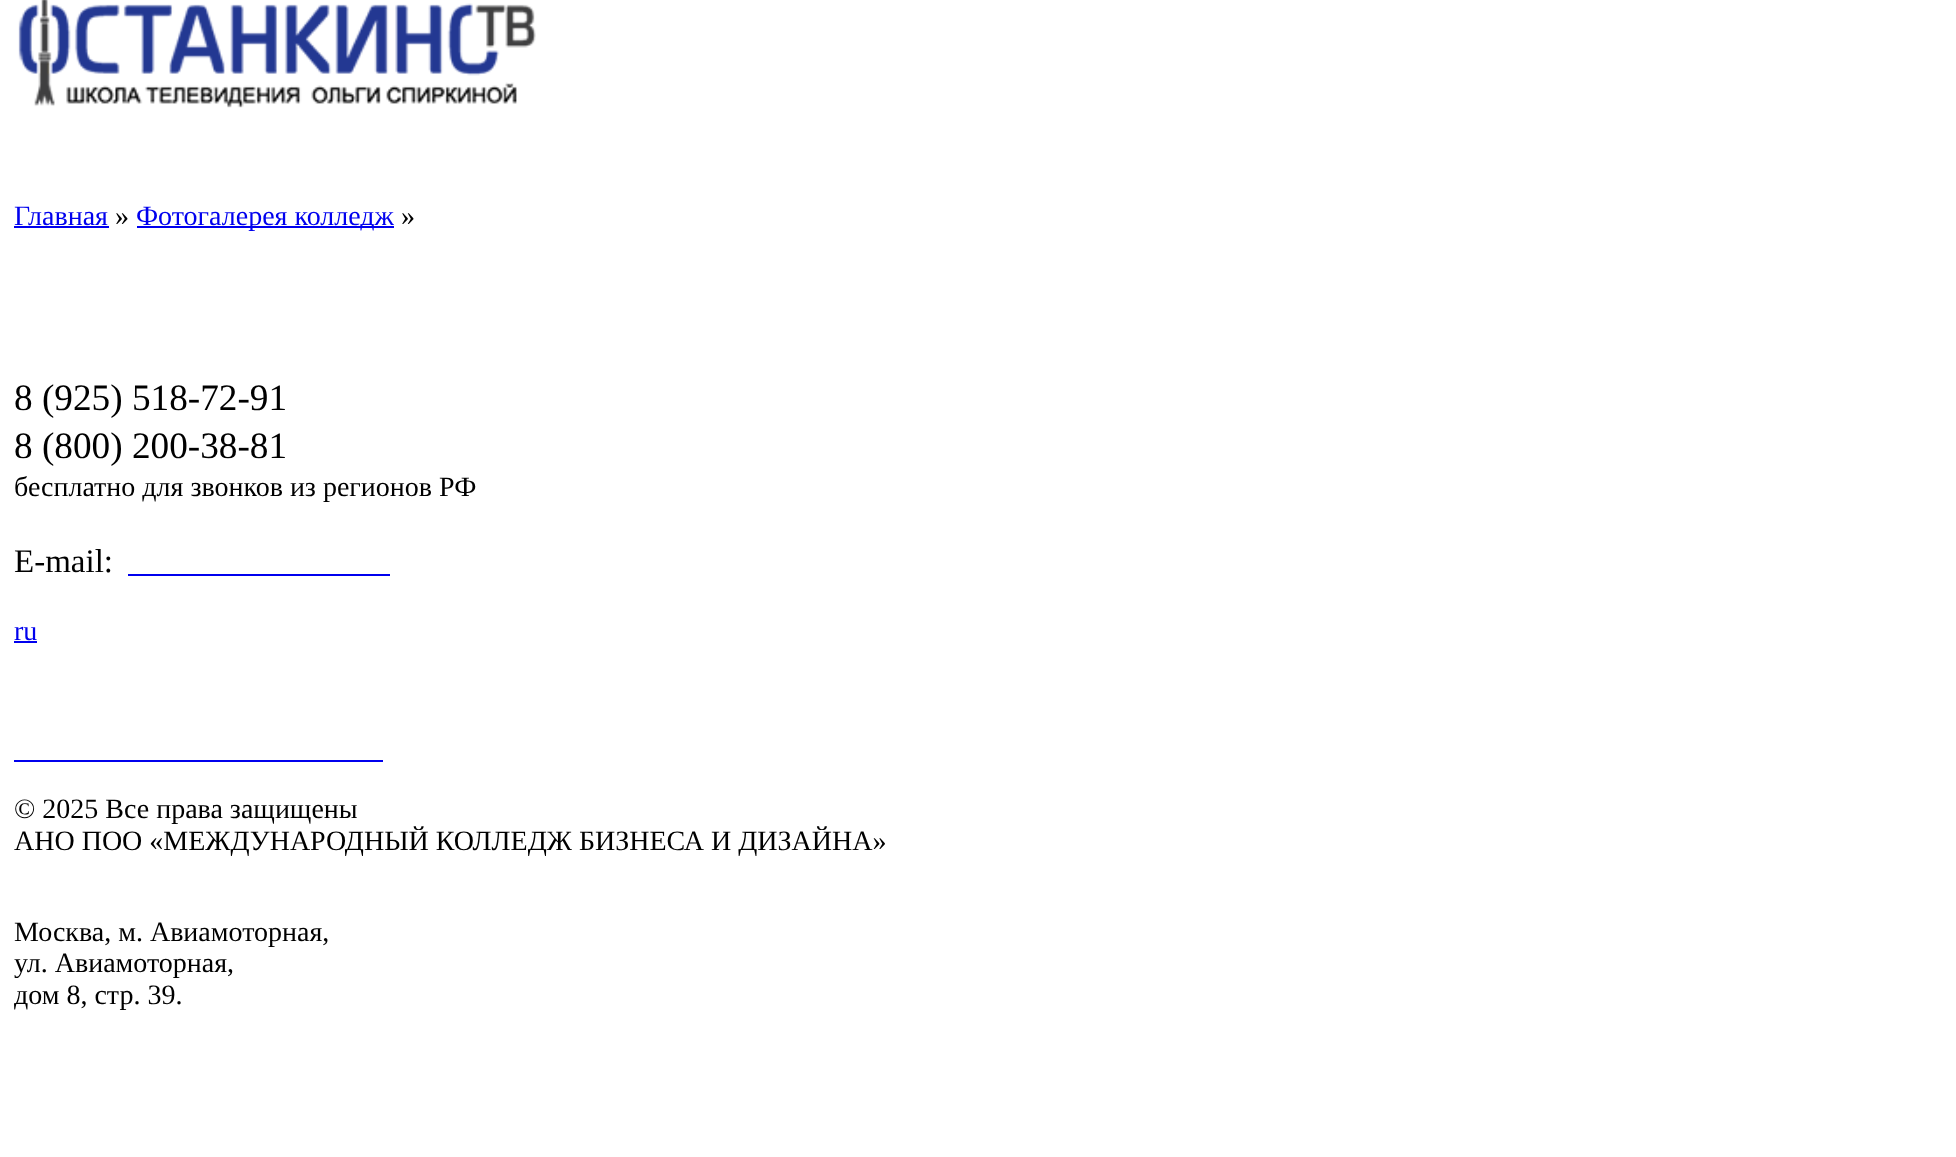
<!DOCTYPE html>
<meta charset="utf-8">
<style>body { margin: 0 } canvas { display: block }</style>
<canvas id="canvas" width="1956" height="1157"></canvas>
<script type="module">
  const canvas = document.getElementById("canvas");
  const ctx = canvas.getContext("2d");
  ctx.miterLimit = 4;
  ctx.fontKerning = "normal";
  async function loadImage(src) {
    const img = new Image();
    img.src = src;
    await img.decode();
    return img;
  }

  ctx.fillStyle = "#ffffff";
  ctx.fillRect(0, 0, 1956, 1157);
  ctx.drawImage(await loadImage("img1.png"), 18, 0, 518, 108);
  ctx.font = "28px Liberation Serif";
  ctx.fillStyle = "#0000ee";
  ctx.fillText("Главная", 14, 225);
  ctx.fillRect(14, 226, 95, 2);
  ctx.fillStyle = "#000000";
  ctx.fillText("»", 115, 225);
  ctx.fillStyle = "#0000ee";
  ctx.fillRect(137, 226, 257, 2);
  ctx.fillText("Фотогалерея колледж", 136, 225);
  ctx.fillStyle = "#000000";
  ctx.fillText("»", 401, 225);
  ctx.font = "37.25px Liberation Serif";
  ctx.fillText("8 (925) 518-72-91", 14, 410);
  ctx.fillText("8 (800) 200-38-81", 14, 458);
  ctx.font = "28px Liberation Serif";
  ctx.fillText("бесплатно для звонков из регионов РФ", 14, 496);
  ctx.font = "33px Liberation Serif";
  ctx.fillText("E-mail:", 14, 572);
  ctx.fillStyle = "#0000ee";
  ctx.fillRect(128, 574, 262, 2);
  ctx.font = "28px Liberation Serif";
  ctx.fillText("ru", 14, 640);
  ctx.fillRect(14, 641, 23, 2);
  ctx.fillRect(14, 760, 369, 2);
  ctx.fillStyle = "#000000";
  ctx.fillText("© 2025 Все права защищены", 14, 818);
  ctx.fillText("АНО ПОО «МЕЖДУНАРОДНЫЙ КОЛЛЕДЖ БИЗНЕСА И ДИЗАЙНА»", 14, 850);
  ctx.fillText("Москва, м. Авиамоторная,", 14, 941);
  ctx.fillText("ул. Авиамоторная,", 14, 972);
  ctx.fillText("дом 8, стр. 39.", 14, 1004);
</script>
